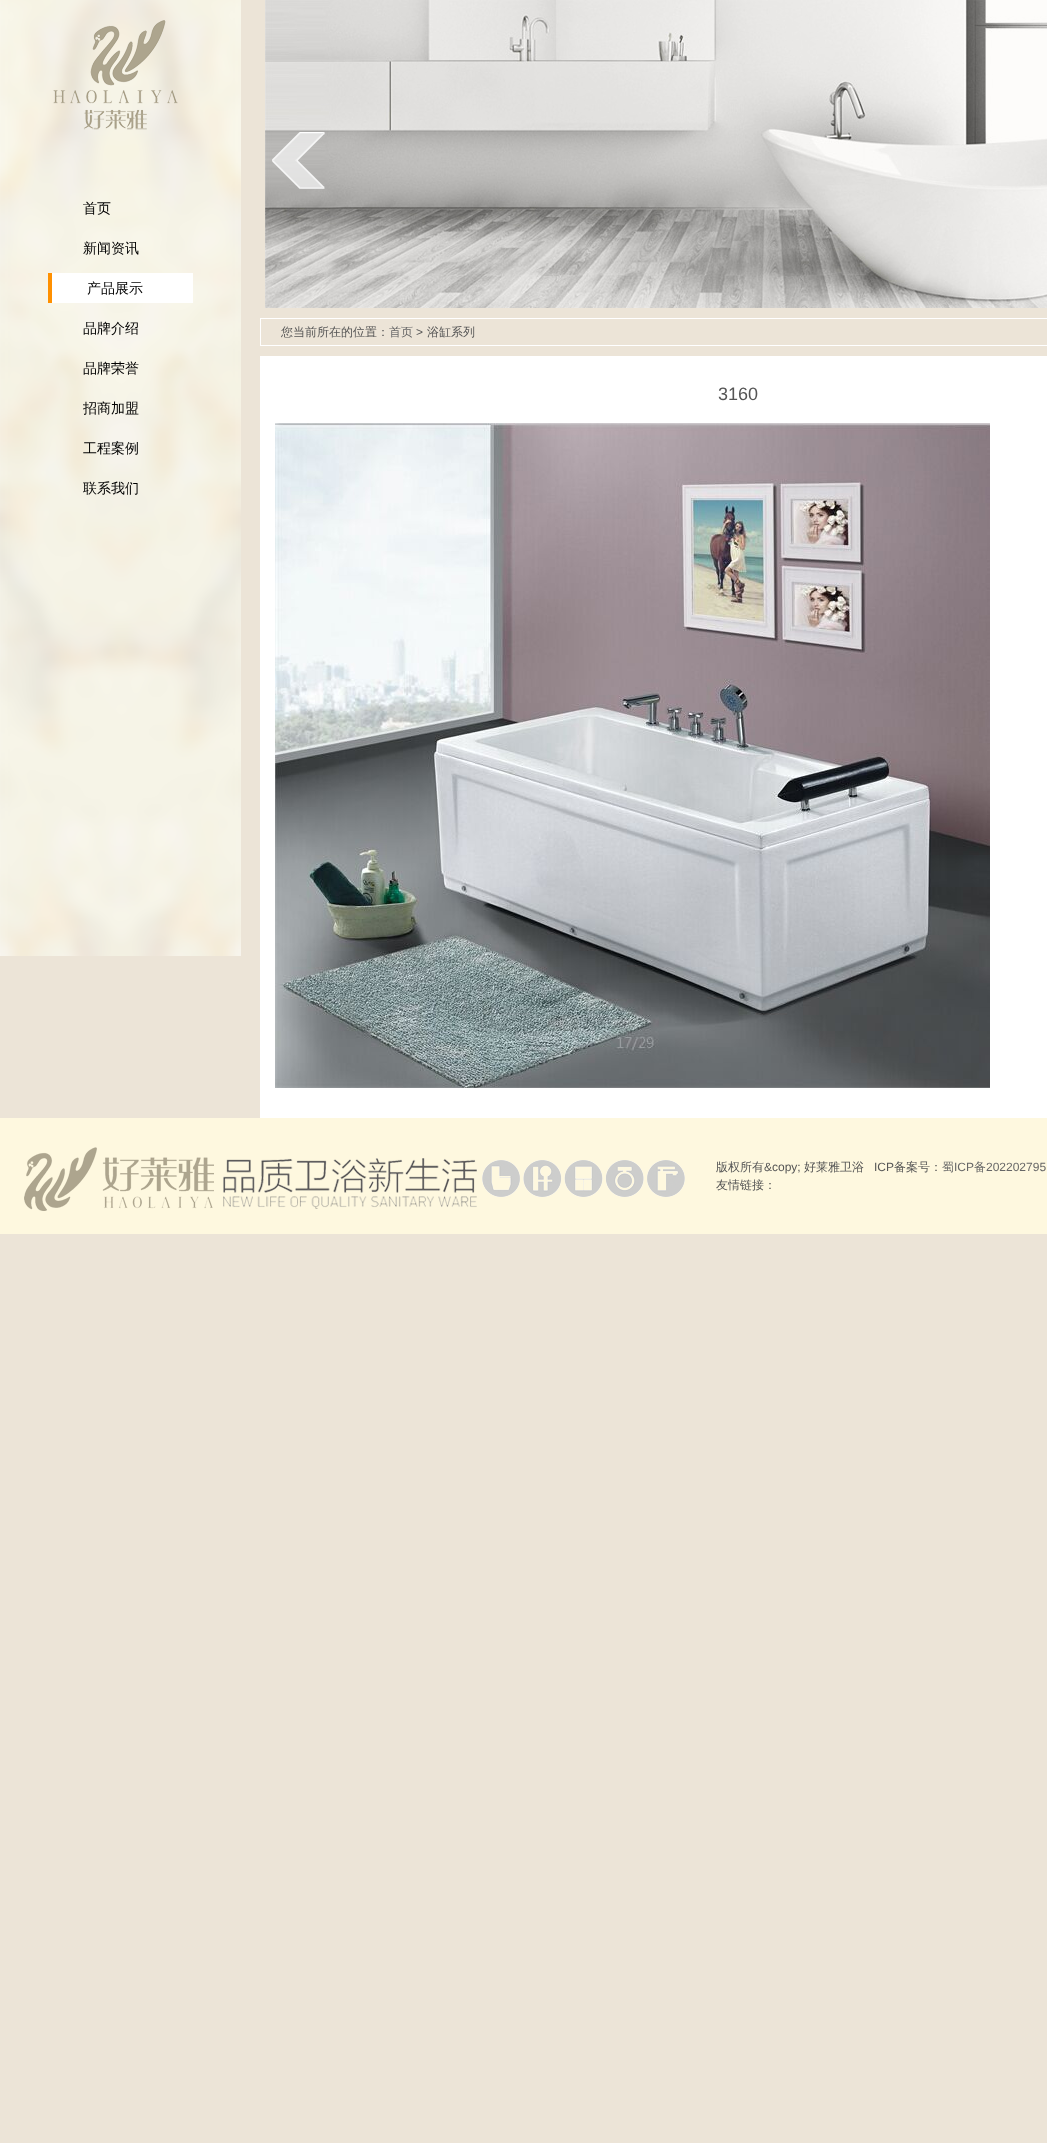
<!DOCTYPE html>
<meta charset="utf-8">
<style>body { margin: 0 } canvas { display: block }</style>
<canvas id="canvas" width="1047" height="2143"></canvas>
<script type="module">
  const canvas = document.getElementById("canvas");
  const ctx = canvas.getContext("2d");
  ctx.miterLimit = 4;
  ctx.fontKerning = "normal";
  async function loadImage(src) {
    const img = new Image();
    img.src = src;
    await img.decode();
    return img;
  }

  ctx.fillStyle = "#ece4d7";
  ctx.fillRect(0, 0, 1047, 2143);
  ctx.drawImage(await loadImage("img1.png"), 0, 0, 241, 956);
  ctx.drawImage(await loadImage("img2.png"), 53, 20, 125, 110);
  ctx.font = "500 14px WenQuanYi Zen Hei";
  ctx.fillStyle = "#000000";
  ctx.fillText("首页", 83, 213);
  ctx.fillText("新闻资讯", 83, 253);
  ctx.fillStyle = "#ffffff";
  ctx.fillRect(52, 273, 141, 30);
  ctx.fillStyle = "#ff9000";
  ctx.fillRect(48, 273, 4, 30);
  ctx.fillStyle = "#000000";
  ctx.fillText("产品展示", 87, 293);
  ctx.fillText("品牌介绍", 83, 333);
  ctx.fillText("品牌荣誉", 83, 373);
  ctx.fillText("招商加盟", 83, 413);
  ctx.fillText("工程案例", 83, 453);
  ctx.fillText("联系我们", 83, 493);
  ctx.drawImage(await loadImage("img3.png"), 265, 0, 782, 308);
  ctx.drawImage(await loadImage("img4.png"), 272, 132, 53, 57);
  ctx.strokeStyle = "#ffffff";
  ctx.strokeRect(260.5, 318.5, 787, 27);
  ctx.font = "500 12px WenQuanYi Zen Hei";
  ctx.fillStyle = "#555555";
  ctx.fillText("您当前所在的位置：", 281, 336);
  ctx.fillStyle = "#666666";
  ctx.fillText("首页", 389, 336);
  ctx.font = "12px Liberation Sans";
  ctx.fillStyle = "#555555";
  ctx.fillText(">", 416, 336);
  ctx.font = "500 12px WenQuanYi Zen Hei";
  ctx.fillText("浴缸系列", 427, 336);
  ctx.fillStyle = "#ffffff";
  ctx.fillRect(260, 356, 787, 762);
  ctx.font = "18px Liberation Sans";
  ctx.fillStyle = "#555555";
  ctx.fillText("3160", 718, 400);
  ctx.drawImage(await loadImage("img5.png"), 275, 423, 715, 665);
  ctx.fillStyle = "#fef8df";
  ctx.fillRect(0, 1118, 1047, 116);
  ctx.drawImage(await loadImage("img6.png"), 24, 1147, 661, 64);
  ctx.font = "500 12px WenQuanYi Zen Hei";
  ctx.fillStyle = "#555555";
  ctx.fillText("版权所有", 716, 1171);
  ctx.font = "12px Liberation Sans";
  ctx.fillText("&copy;", 764, 1171);
  ctx.font = "500 12px WenQuanYi Zen Hei";
  ctx.fillText("好莱雅卫浴", 804, 1171);
  ctx.font = "12px Liberation Sans";
  ctx.fillText("ICP", 874, 1171);
  ctx.font = "500 12px WenQuanYi Zen Hei";
  ctx.fillText("备案号：", 894, 1171);
  ctx.fillStyle = "#666666";
  ctx.fillText("蜀", 942, 1171);
  ctx.font = "12px Liberation Sans";
  ctx.fillText("ICP", 954, 1171);
  ctx.font = "500 12px WenQuanYi Zen Hei";
  ctx.fillText("备", 974, 1171);
  ctx.font = "12px Liberation Sans";
  ctx.fillText("202202795", 986, 1171);
  ctx.font = "500 12px WenQuanYi Zen Hei";
  ctx.fillStyle = "#555555";
  ctx.fillText("友情链接：", 716, 1189);
</script>
